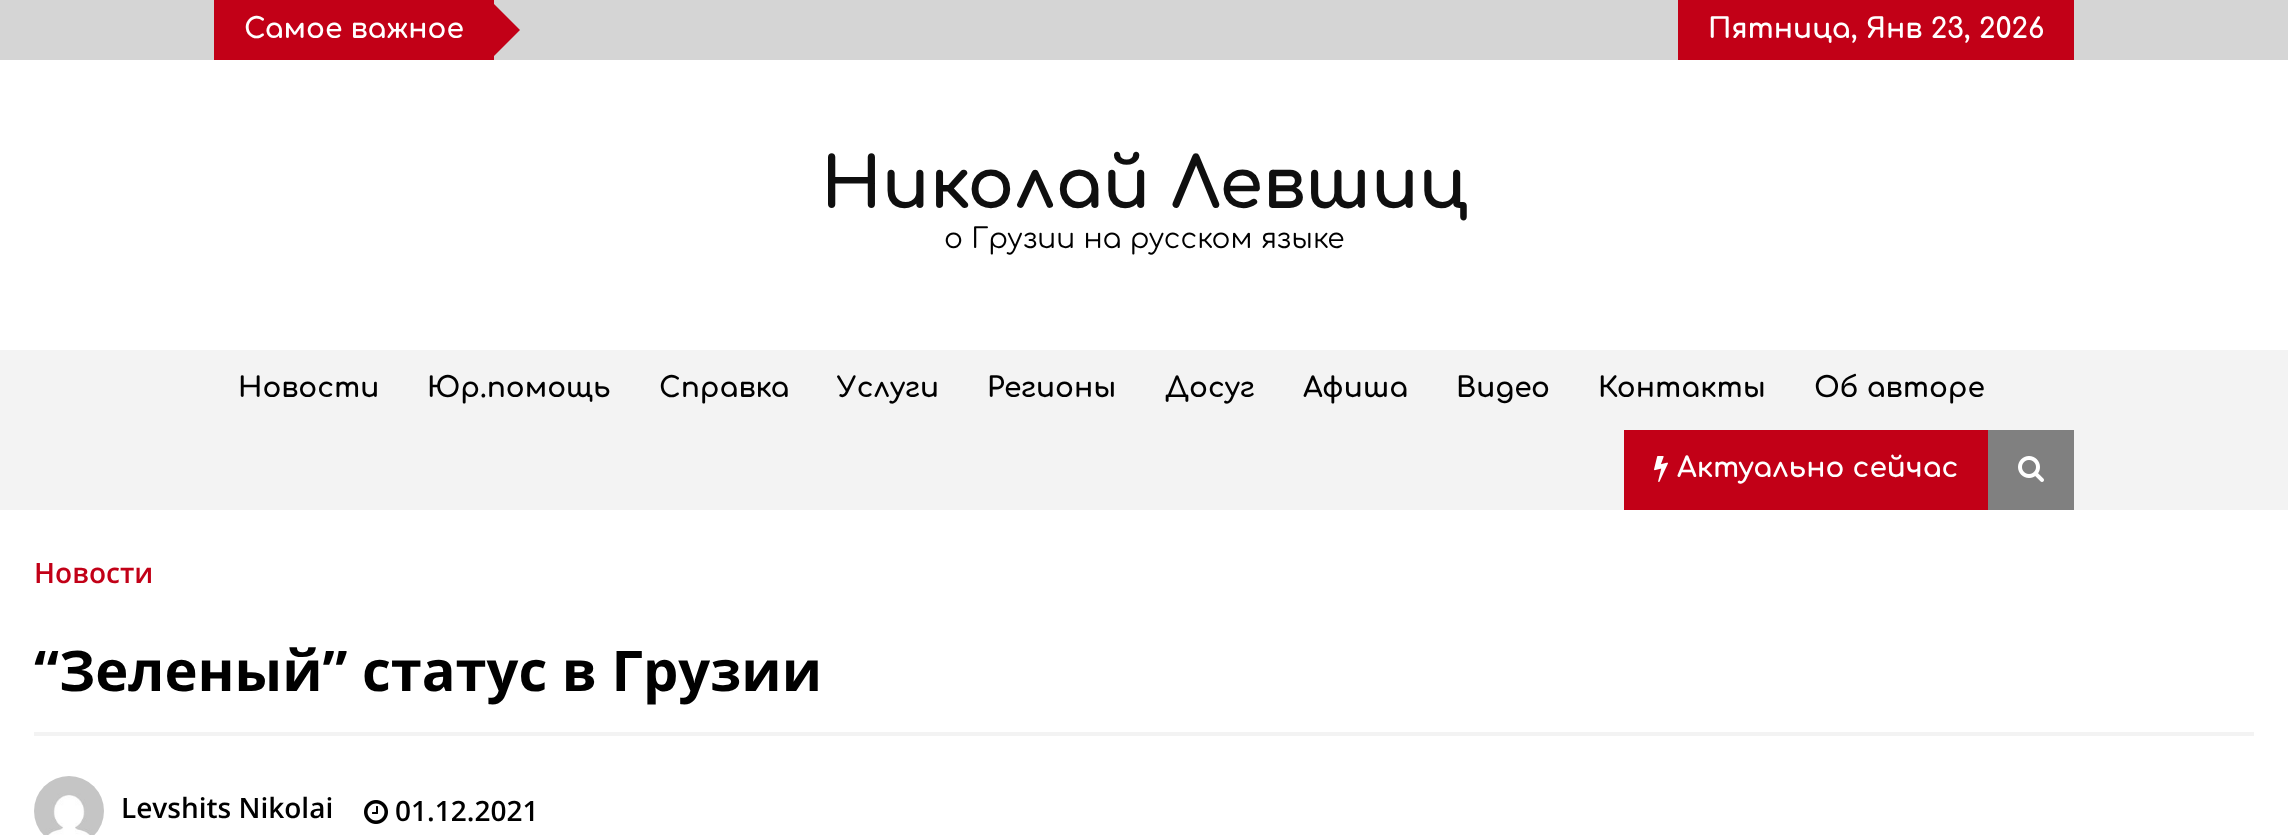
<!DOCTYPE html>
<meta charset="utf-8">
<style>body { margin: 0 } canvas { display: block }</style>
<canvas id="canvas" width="2288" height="835"></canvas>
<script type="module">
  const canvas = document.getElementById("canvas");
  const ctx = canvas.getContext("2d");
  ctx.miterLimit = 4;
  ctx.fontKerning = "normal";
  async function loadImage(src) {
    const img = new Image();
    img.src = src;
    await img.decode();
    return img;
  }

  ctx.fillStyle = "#ffffff";
  ctx.fillRect(0, 0, 2288, 835);
  ctx.fillStyle = "#d5d5d5";
  ctx.fillRect(0, 0, 2288, 60);
  ctx.fillStyle = "#c20017";
  ctx.fillRect(214, 0, 280, 60);
  ctx.font = "bold 28px Comfortaa";
  ctx.fillStyle = "#ffffff";
  ctx.fillText("Самое важное", 244, 38);
  ctx.fillStyle = "#c20017";
  ctx.beginPath();
  ctx.moveTo(494, 56);
  ctx.lineTo(494, 4);
  ctx.lineTo(520, 30);
  ctx.closePath();
  ctx.fill();
  ctx.fillRect(1678, 0, 396, 60);
  ctx.fillStyle = "#ffffff";
  ctx.fillText("Пятница, Янв 23, 2026", 1708, 38);
  ctx.font = "bold 70px Comfortaa";
  ctx.fillStyle = "#0f0f0f";
  ctx.fillText("Николай Левшиц", 821, 208);
  ctx.font = "28px Comfortaa";
  ctx.fillStyle = "#000000";
  ctx.fillText("о Грузии на русском языке", 944, 248);
  ctx.fillStyle = "#f3f3f3";
  ctx.fillRect(0, 350, 2288, 160);
  ctx.font = "bold 28px Comfortaa";
  ctx.fillStyle = "#000000";
  ctx.fillText("Новости", 238, 397);
  ctx.fillText("Юр.помощь", 427, 397);
  ctx.fillText("Справка", 659, 397);
  ctx.fillText("Услуги", 837, 397);
  ctx.fillText("Регионы", 987, 397);
  ctx.fillText("Досуг", 1165, 397);
  ctx.fillText("Афиша", 1303, 397);
  ctx.fillText("Видео", 1456, 397);
  ctx.fillText("Контакты", 1598, 397);
  ctx.fillText("Об авторе", 1814, 397);
  ctx.fillStyle = "#c20017";
  ctx.fillRect(1624, 430, 364, 80);
  ctx.drawImage(await loadImage("img1.png"), 1654, 456, 14, 26);
  ctx.fillStyle = "#ffffff";
  ctx.fillText("Актуально сейчас", 1677, 477);
  ctx.fillStyle = "#808080";
  ctx.fillRect(1988, 430, 86, 80);
  ctx.drawImage(await loadImage("img2.png"), 2018, 456, 26, 26);
  ctx.font = "600 28px Open Sans";
  ctx.fillStyle = "#c20017";
  ctx.fillText("Новости", 34, 583);
  ctx.fillStyle = "#f3f3f3";
  ctx.fillRect(34, 732, 2220, 4);
  ctx.font = "bold 56px Open Sans";
  ctx.fillStyle = "#000000";
  ctx.fillText("“Зеленый” статус в Грузии", 34, 691);
  ctx.drawImage(await loadImage("img3.png"), 34, 776, 70, 59);
  ctx.font = "600 28px Open Sans";
  ctx.fillText("Levshits Nikolai", 121, 818);
  ctx.drawImage(await loadImage("img4.png"), 364, 800, 24, 24);
  ctx.fillText("01.12.2021", 395, 821);
</script>
